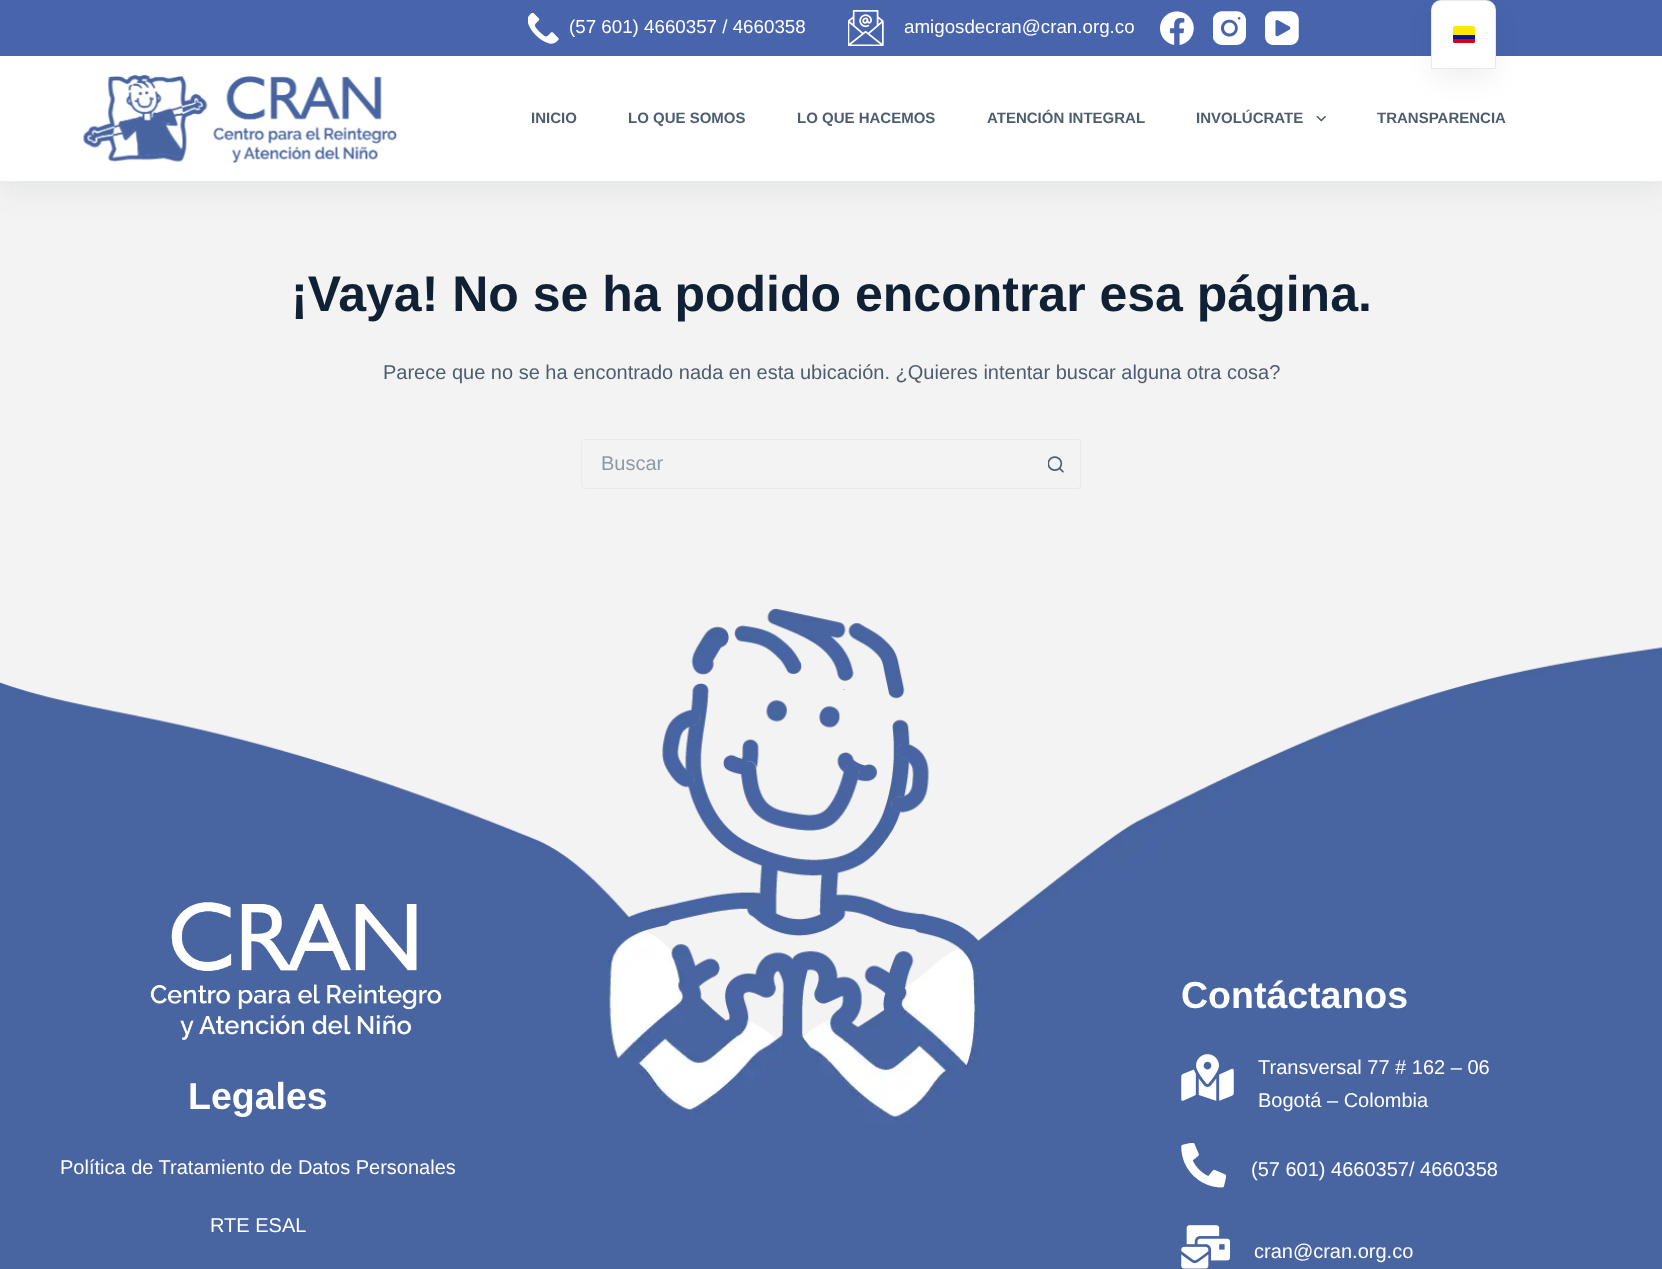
<!DOCTYPE html>
<meta charset="utf-8">
<style>body { margin: 0 } canvas { display: block }</style>
<canvas id="canvas" width="1662" height="1269"></canvas>
<script type="module">
  const canvas = document.getElementById("canvas");
  const ctx = canvas.getContext("2d");
  ctx.miterLimit = 4;
  ctx.fontKerning = "normal";
  async function loadImage(src) {
    const img = new Image();
    img.src = src;
    await img.decode();
    return img;
  }

  ctx.fillStyle = "#f3f3f3";
  ctx.fillRect(0, 0, 1662, 1269);
  ctx.fillStyle = "rgba(43, 61, 80, 0.06)";
  ctx.filter = "blur(12.5px)";
  ctx.beginPath();
  ctx.rect(0, 69, 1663, 125);
  ctx.fill();
  ctx.filter = "none";
  ctx.fillStyle = "#4864ac";
  ctx.fillRect(0, 0, 1662, 56);
  ctx.fillStyle = "#ffffff";
  ctx.fillRect(0, 56, 1662, 125);
  ctx.fillStyle = "rgba(0, 0, 0, 0.05)";
  ctx.filter = "blur(12.5px)";
  ctx.beginPath();
  ctx.roundRect(1431, 13, 65, 68, 10);
  ctx.fill();
  ctx.filter = "none";
  ctx.fillStyle = "#ffffff";
  ctx.beginPath();
  ctx.roundRect(1431, 0, 65, 69, [10, 10, 0, 0]);
  ctx.fill();
  ctx.beginPath();
  ctx.roundRect(1431.5, 0.5, 64, 68, [9.5, 9.5, 0, 0]);
  ctx.strokeStyle = "rgba(20, 56, 82, 0.1)";
  ctx.stroke();
  ctx.fillStyle = "#ffe800";
  ctx.beginPath();
  ctx.roundRect(1453, 26, 22, 17, 2.5);
  ctx.fill();
  ctx.fillStyle = "#00148e";
  ctx.beginPath();
  ctx.roundRect(1453, 35, 22, 8, [0, 0, 2.5, 2.5]);
  ctx.fill();
  ctx.fillStyle = "#da0010";
  ctx.beginPath();
  ctx.roundRect(1453, 39, 22, 4, [0, 0, 2.5, 2.5]);
  ctx.fill();
  ctx.drawImage(await loadImage("img1.png"), 528, 13, 31, 31);
  ctx.font = "18.75px Liberation Sans";
  ctx.fillStyle = "#ffffff";
  ctx.fillText("(57 601) 4660357 / 4660358", 569, 33);
  ctx.drawImage(await loadImage("img2.png"), 848, 10, 36, 36);
  ctx.fillText("amigosdecran@cran.org.co", 904, 33);
  ctx.drawImage(await loadImage("img3.png"), 1160, 11, 34, 34);
  ctx.drawImage(await loadImage("img4.png"), 1213, 11, 33, 34);
  ctx.drawImage(await loadImage("img5.png"), 1265, 11, 34, 34);
  ctx.drawImage(await loadImage("img6.png"), 83, 75, 314, 88);
  ctx.font = "bold 15px Liberation Sans";
  ctx.fillStyle = "#4d5d6d";
  ctx.fillText("INICIO", 531, 123);
  ctx.fillText("LO QUE SOMOS", 628, 123);
  ctx.fillText("LO QUE HACEMOS", 797, 123);
  ctx.fillText("ATENCIÓN INTEGRAL", 987, 123);
  ctx.fillText("INVOLÚCRATE", 1196, 123);
  ctx.drawImage(await loadImage("img7.png"), 1316, 116, 10, 6);
  ctx.fillText("TRANSPARENCIA", 1377, 123);
  ctx.font = "bold 50px Liberation Sans";
  ctx.fillStyle = "#102136";
  ctx.fillText("¡Vaya! No se ha podido encontrar esa página.", 291, 311);
  ctx.font = "20px Liberation Sans";
  ctx.fillStyle = "#4d5d6d";
  ctx.fillText("Parece que no se ha encontrado nada en esta ubicación. ¿Quieres intentar buscar alguna otra cosa?", 383, 379);
  ctx.fillStyle = "#e7ebee";
  ctx.beginPath();
  ctx.moveTo(585, 439);
  ctx.lineTo(1031, 439);
  ctx.lineTo(1031, 489);
  ctx.lineTo(585, 489);
  ctx.bezierCurveTo(583, 489, 581, 487, 581, 485);
  ctx.lineTo(581, 442);
  ctx.bezierCurveTo(581, 440, 583, 439, 585, 439);
  ctx.closePath();
  ctx.moveTo(585, 440);
  ctx.lineTo(1031, 440);
  ctx.lineTo(1031, 488);
  ctx.lineTo(585, 488);
  ctx.bezierCurveTo(584, 488, 582, 486, 582, 485);
  ctx.lineTo(582, 442);
  ctx.bezierCurveTo(582, 441, 584, 440, 585, 440);
  ctx.closePath();
  ctx.fill("evenodd");
  ctx.fillStyle = "#8f99a3";
  ctx.fillText("Buscar", 601, 470);
  ctx.fillStyle = "#e7ebee";
  ctx.beginPath();
  ctx.moveTo(1031, 439);
  ctx.lineTo(1078, 439);
  ctx.bezierCurveTo(1080, 439, 1081, 440, 1081, 442);
  ctx.lineTo(1081, 485);
  ctx.bezierCurveTo(1081, 487, 1080, 489, 1078, 489);
  ctx.lineTo(1031, 489);
  ctx.closePath();
  ctx.moveTo(1031, 440);
  ctx.lineTo(1078, 440);
  ctx.bezierCurveTo(1079, 440, 1080, 441, 1080, 442);
  ctx.lineTo(1080, 485);
  ctx.bezierCurveTo(1080, 486, 1079, 488, 1078, 488);
  ctx.lineTo(1031, 488);
  ctx.closePath();
  ctx.fill("evenodd");
  ctx.drawImage(await loadImage("img8.png"), 1048, 456, 16, 17);
  ctx.drawImage(await loadImage("img9.png"), 0, 608, 1662, 661);
  ctx.drawImage(await loadImage("img10.png"), 150, 902, 292, 138);
  ctx.font = "bold 37.5px Liberation Sans";
  ctx.fillStyle = "#ffffff";
  ctx.fillText("Legales", 188, 1109);
  ctx.font = "20px Liberation Sans";
  ctx.fillText("Política de Tratamiento de Datos Personales", 60, 1174);
  ctx.fillText("RTE ESAL", 210, 1232);
  ctx.font = "bold 37.5px Liberation Sans";
  ctx.fillText("Contáctanos", 1181, 1008);
  ctx.drawImage(await loadImage("img11.png"), 1181, 1054, 53, 47);
  ctx.font = "20px Liberation Sans";
  ctx.fillText("Transversal 77 # 162 – 06", 1258, 1074);
  ctx.fillText("Bogotá – Colombia", 1258, 1107);
  ctx.drawImage(await loadImage("img12.png"), 1181, 1143, 45, 45);
  ctx.fillText("(57 601) 4660357/ 4660358", 1251, 1176);
  ctx.drawImage(await loadImage("img13.png"), 1181, 1225, 49, 44);
  ctx.fillText("cran@cran.org.co", 1254, 1258);
</script>
